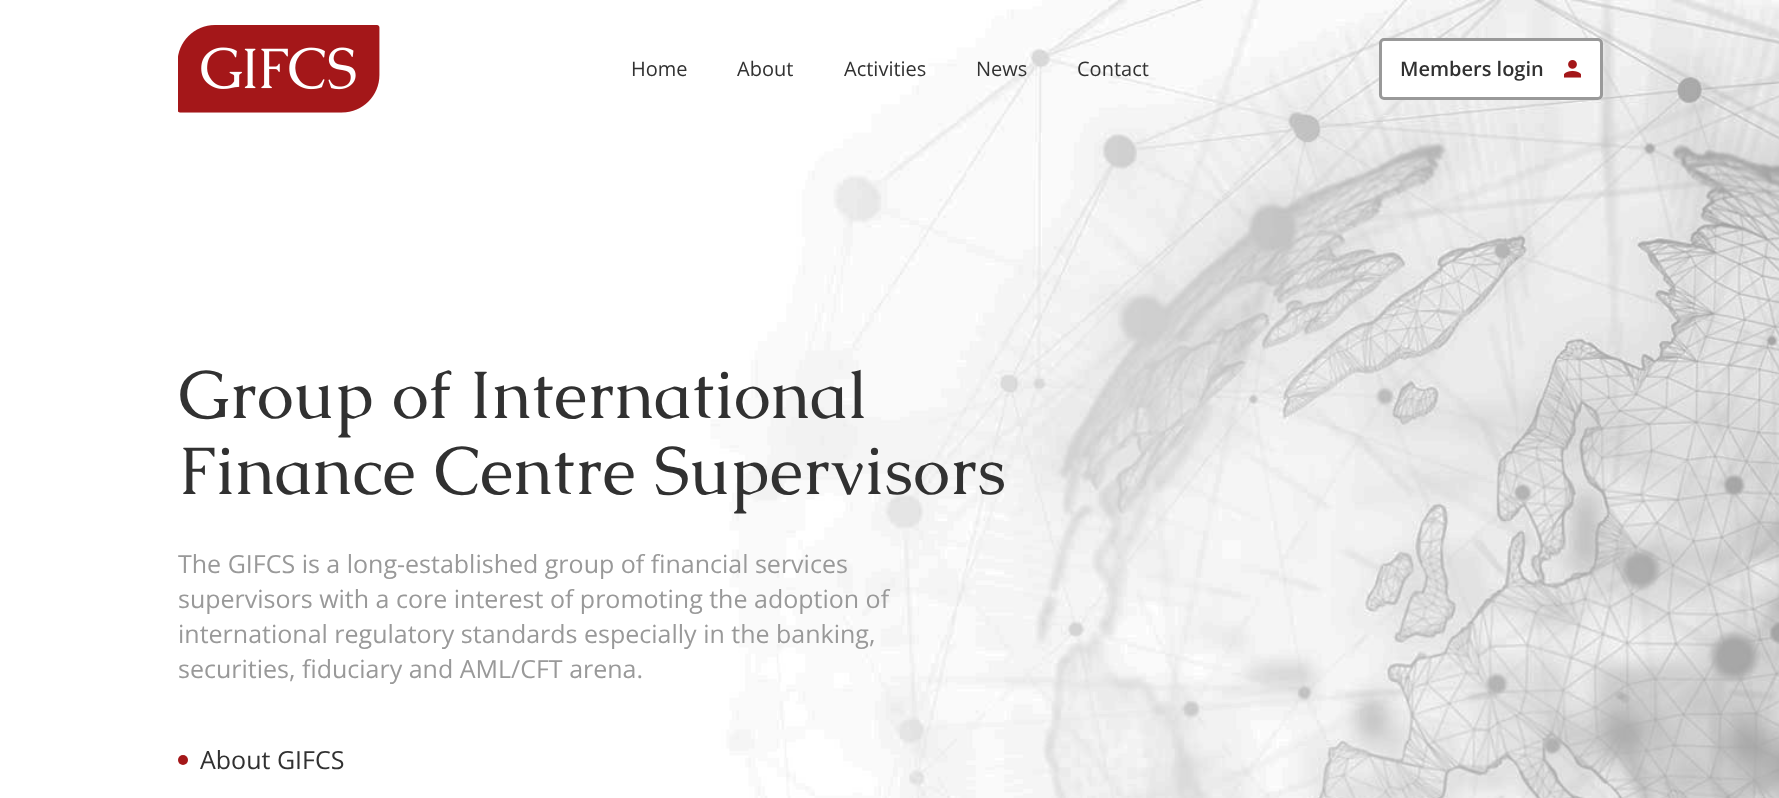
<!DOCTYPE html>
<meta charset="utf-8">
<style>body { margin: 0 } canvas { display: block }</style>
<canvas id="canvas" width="1779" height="798"></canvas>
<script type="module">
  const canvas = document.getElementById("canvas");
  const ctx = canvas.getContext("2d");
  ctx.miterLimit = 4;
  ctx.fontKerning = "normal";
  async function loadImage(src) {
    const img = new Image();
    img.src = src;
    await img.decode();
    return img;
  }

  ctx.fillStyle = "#ffffff";
  ctx.fillRect(0, 0, 1779, 798);
  ctx.drawImage(await loadImage("img1.png"), 710, 0, 1069, 798);
  ctx.drawImage(await loadImage("img2.png"), 178, 25, 202, 88);
  ctx.font = "20px Open Sans";
  ctx.fillStyle = "#313131";
  ctx.fillText("Home", 631, 76);
  ctx.fillText("About", 737, 76);
  ctx.fillText("Activities", 844, 76);
  ctx.fillText("News", 976, 76);
  ctx.fillText("Contact", 1077, 76);
  ctx.fillStyle = "#ffffff";
  ctx.beginPath();
  ctx.roundRect(1379, 38, 224, 62, 5);
  ctx.fill();
  ctx.drawImage(await loadImage("img3.png"), 1564, 60, 17, 18);
  ctx.beginPath();
  ctx.roundRect(1380.5, 39.5, 221, 59, 3.5);
  ctx.strokeStyle = "#999999";
  ctx.lineWidth = 3;
  ctx.stroke();
  ctx.font = "600 20px Open Sans";
  ctx.fillStyle = "#313131";
  ctx.fillText("Members login", 1400, 76);
  ctx.font = "67.6px Caudex";
  ctx.fillText("Group of International", 178, 418);
  ctx.fillText("Finance Centre Supervisors", 178, 494);
  ctx.font = "25px Open Sans";
  ctx.fillStyle = "#999999";
  ctx.fillText("The GIFCS is a long-established group of financial services", 178, 573);
  ctx.fillText("supervisors with a core interest of promoting the adoption of", 178, 608);
  ctx.fillText("international regulatory standards especially in the banking,", 178, 643);
  ctx.fillText("securities, fiduciary and AML/CFT arena.", 178, 678);
  ctx.fillStyle = "#a41719";
  ctx.beginPath();
  ctx.arc(183, 760, 5, 0, Math.PI * 2);
  ctx.fill();
  ctx.fillStyle = "#313131";
  ctx.fillText("About GIFCS", 200, 769);
</script>
